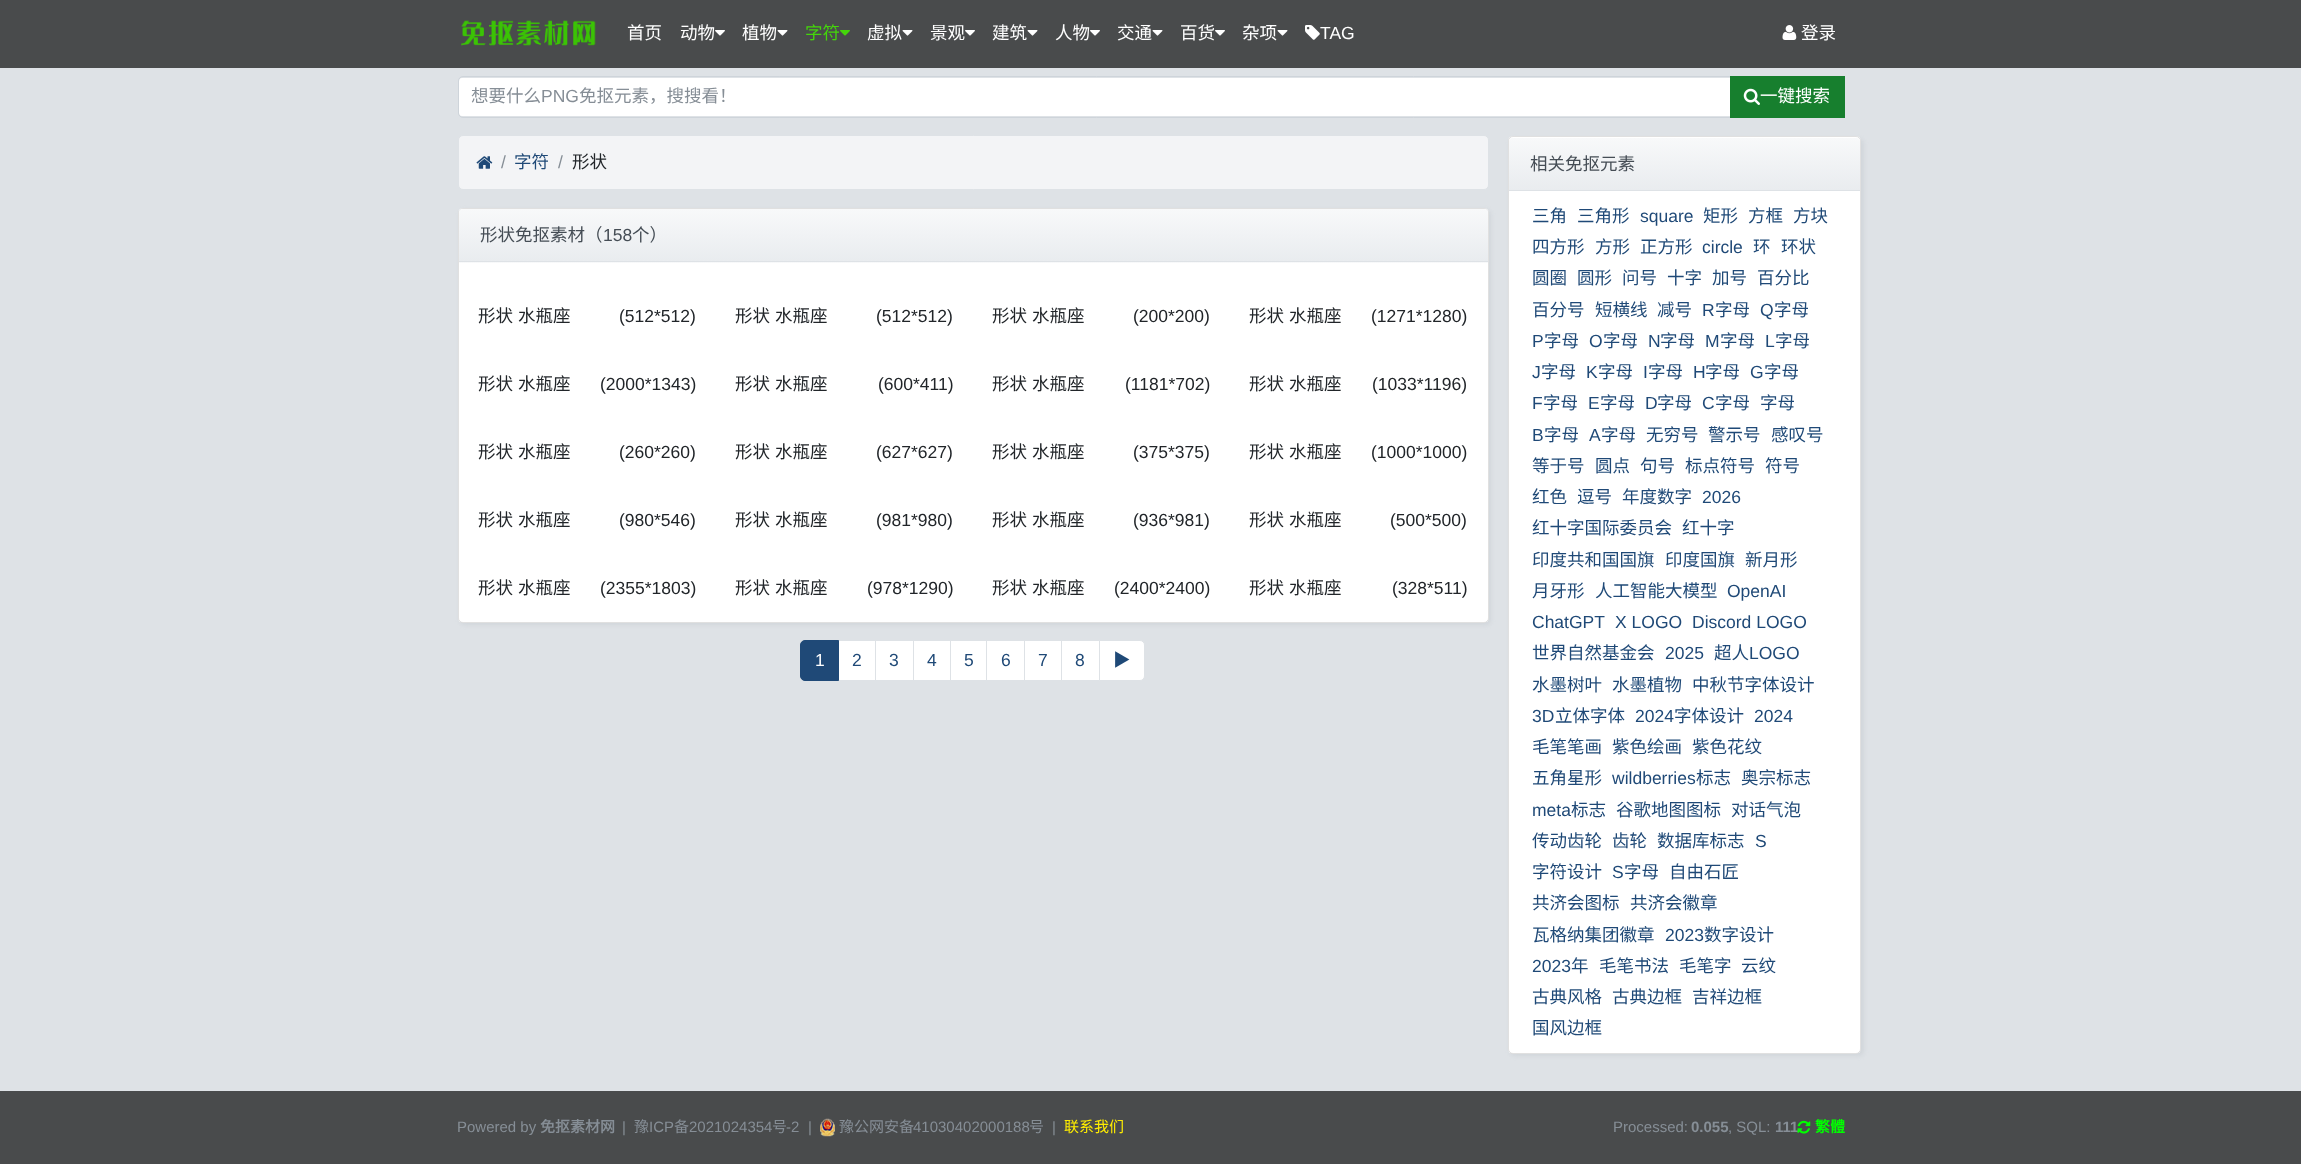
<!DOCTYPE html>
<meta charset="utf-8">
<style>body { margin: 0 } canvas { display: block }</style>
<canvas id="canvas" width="2301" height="1164"></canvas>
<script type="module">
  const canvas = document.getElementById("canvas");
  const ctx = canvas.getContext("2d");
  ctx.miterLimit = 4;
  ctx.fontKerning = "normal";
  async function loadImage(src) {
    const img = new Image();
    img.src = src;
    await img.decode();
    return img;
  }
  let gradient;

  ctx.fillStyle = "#dee2e6";
  ctx.fillRect(0, 0, 2301, 1164);
  ctx.fillStyle = "#494b4c";
  ctx.fillRect(0, 0, 2301, 68);
  ctx.drawImage(await loadImage("img1.png"), 461, 20, 135, 26);
  ctx.font = "17.5px Noto Sans CJK SC";
  ctx.fillStyle = "#ffffff";
  ctx.fillText("首页", 627, 39);
  ctx.fillText("动物", 680, 39);
  ctx.drawImage(await loadImage("img2.png"), 715, 30, 10, 6);
  ctx.fillText("植物", 742, 39);
  ctx.drawImage(await loadImage("img3.png"), 777, 30, 11, 6);
  ctx.fillStyle = "#44d60b";
  ctx.fillText("字符", 805, 39);
  ctx.drawImage(await loadImage("img4.png"), 840, 30, 10, 6);
  ctx.fillStyle = "#ffffff";
  ctx.fillText("虚拟", 867, 39);
  ctx.drawImage(await loadImage("img3.png"), 902, 30, 11, 6);
  ctx.fillText("景观", 930, 39);
  ctx.drawImage(await loadImage("img2.png"), 965, 30, 10, 6);
  ctx.fillText("建筑", 992, 39);
  ctx.drawImage(await loadImage("img3.png"), 1027, 30, 11, 6);
  ctx.fillText("人物", 1055, 39);
  ctx.drawImage(await loadImage("img2.png"), 1090, 30, 10, 6);
  ctx.fillText("交通", 1117, 39);
  ctx.drawImage(await loadImage("img3.png"), 1152, 30, 11, 6);
  ctx.fillText("百货", 1180, 39);
  ctx.drawImage(await loadImage("img2.png"), 1215, 30, 10, 6);
  ctx.fillText("杂项", 1242, 39);
  ctx.drawImage(await loadImage("img3.png"), 1277, 30, 11, 6);
  ctx.drawImage(await loadImage("img5.png"), 1305, 25, 15, 15);
  ctx.font = "17.5px Liberation Sans";
  ctx.fillText("TAG", 1320, 39);
  ctx.drawImage(await loadImage("img6.png"), 1782, 25, 15, 15);
  ctx.font = "17.5px Noto Sans CJK SC";
  ctx.fillText("登录", 1801, 39);
  ctx.beginPath();
  ctx.roundRect(459, 78, 1271, 38, [3, 0, 0, 3]);
  ctx.fill();
  ctx.beginPath();
  ctx.roundRect(458.5, 76.5, 1272, 41, [4.5, 0, 0, 4.5]);
  ctx.strokeStyle = "#ced4da";
  ctx.stroke();
  ctx.fillStyle = "#868e96";
  ctx.fillText("想要什么", 471, 102);
  ctx.font = "17.5px Liberation Sans";
  ctx.fillText("PNG", 541, 102);
  ctx.font = "17.5px Noto Sans CJK SC";
  ctx.fillText("免抠元素，搜搜看！", 579, 102);
  ctx.fillStyle = "#177f2e";
  ctx.fillRect(1730, 76, 115, 42);
  ctx.drawImage(await loadImage("img7.png"), 1743, 88, 17, 17);
  ctx.fillStyle = "#ffffff";
  ctx.fillText("一键搜索", 1760, 102);
  ctx.fillStyle = "#f3f4f6";
  ctx.beginPath();
  ctx.roundRect(458.5, 135.5, 1030, 54, 4.5);
  ctx.fill();
  ctx.strokeStyle = "#dee2e6";
  ctx.stroke();
  ctx.drawImage(await loadImage("img8.png"), 476, 156, 17, 13);
  ctx.font = "17.5px Liberation Sans";
  ctx.fillStyle = "#868e96";
  ctx.fillText("/", 501, 168);
  ctx.font = "17.5px Noto Sans CJK SC";
  ctx.fillStyle = "#1f4977";
  ctx.fillText("字符", 514, 168);
  ctx.font = "17.5px Liberation Sans";
  ctx.fillStyle = "#868e96";
  ctx.fillText("/", 558, 168);
  ctx.font = "17.5px Noto Sans CJK SC";
  ctx.fillStyle = "#212529";
  ctx.fillText("形状", 572, 168);
  ctx.fillStyle = "rgba(173, 181, 189, 0.25)";
  ctx.filter = "blur(2px)";
  ctx.beginPath();
  ctx.roundRect(460, 210, 1031, 415, 5);
  ctx.fill();
  ctx.filter = "none";
  ctx.fillStyle = "#ffffff";
  ctx.beginPath();
  ctx.roundRect(458, 208, 1031, 415, 5);
  ctx.fill();
  ctx.beginPath();
  ctx.roundRect(458.5, 208.5, 1030, 414, 4.5);
  ctx.strokeStyle = "rgba(0, 0, 0, 0.12)";
  ctx.stroke();
  gradient = ctx.createLinearGradient(973, 261, 973, 209);
  gradient.addColorStop(0, "#e9ecef");
  gradient.addColorStop(1, "#f8f9fa");
  ctx.fillStyle = gradient;
  ctx.beginPath();
  ctx.roundRect(459, 209, 1029, 52, [3, 3, 0, 0]);
  ctx.fill();
  gradient = ctx.createLinearGradient(973, 314, 973, 261);
  gradient.addColorStop(0, "#e9ecef");
  gradient.addColorStop(1, "#f8f9fa");
  ctx.fillStyle = gradient;
  ctx.fillRect(459, 262, 1029, 1);
  ctx.fillStyle = "#dee2e6";
  ctx.fillRect(459, 261, 1029, 1);
  ctx.fillStyle = "#454d55";
  ctx.fillText("形状免抠素材（", 480, 241);
  ctx.font = "17.5px Liberation Sans";
  ctx.fillText("158", 603, 241);
  ctx.font = "17.5px Noto Sans CJK SC";
  ctx.fillText("个）", 632, 241);
  ctx.wordSpacing = "1px";
  ctx.fillStyle = "#212529";
  ctx.fillText("形状 水瓶座", 478, 322);
  ctx.wordSpacing = "0px";
  ctx.font = "17.5px Liberation Sans";
  ctx.fillText("(512*512)", 619, 322);
  ctx.wordSpacing = "1px";
  ctx.font = "17.5px Noto Sans CJK SC";
  ctx.fillText("形状 水瓶座", 735, 322);
  ctx.wordSpacing = "0px";
  ctx.font = "17.5px Liberation Sans";
  ctx.fillText("(512*512)", 876, 322);
  ctx.wordSpacing = "1px";
  ctx.font = "17.5px Noto Sans CJK SC";
  ctx.fillText("形状 水瓶座", 992, 322);
  ctx.wordSpacing = "0px";
  ctx.font = "17.5px Liberation Sans";
  ctx.fillText("(200*200)", 1133, 322);
  ctx.wordSpacing = "1px";
  ctx.font = "17.5px Noto Sans CJK SC";
  ctx.fillText("形状 水瓶座", 1249, 322);
  ctx.wordSpacing = "0px";
  ctx.font = "17.5px Liberation Sans";
  ctx.fillText("(1271*1280)", 1371, 322);
  ctx.wordSpacing = "1px";
  ctx.font = "17.5px Noto Sans CJK SC";
  ctx.fillText("形状 水瓶座", 478, 390);
  ctx.wordSpacing = "0px";
  ctx.font = "17.5px Liberation Sans";
  ctx.fillText("(2000*1343)", 600, 390);
  ctx.wordSpacing = "1px";
  ctx.font = "17.5px Noto Sans CJK SC";
  ctx.fillText("形状 水瓶座", 735, 390);
  ctx.wordSpacing = "0px";
  ctx.font = "17.5px Liberation Sans";
  ctx.fillText("(600*411)", 878, 390);
  ctx.wordSpacing = "1px";
  ctx.font = "17.5px Noto Sans CJK SC";
  ctx.fillText("形状 水瓶座", 992, 390);
  ctx.wordSpacing = "0px";
  ctx.font = "17.5px Liberation Sans";
  ctx.fillText("(1181*702)", 1125, 390);
  ctx.wordSpacing = "1px";
  ctx.font = "17.5px Noto Sans CJK SC";
  ctx.fillText("形状 水瓶座", 1249, 390);
  ctx.wordSpacing = "0px";
  ctx.font = "17.5px Liberation Sans";
  ctx.fillText("(1033*1196)", 1372, 390);
  ctx.wordSpacing = "1px";
  ctx.font = "17.5px Noto Sans CJK SC";
  ctx.fillText("形状 水瓶座", 478, 458);
  ctx.wordSpacing = "0px";
  ctx.font = "17.5px Liberation Sans";
  ctx.fillText("(260*260)", 619, 458);
  ctx.wordSpacing = "1px";
  ctx.font = "17.5px Noto Sans CJK SC";
  ctx.fillText("形状 水瓶座", 735, 458);
  ctx.wordSpacing = "0px";
  ctx.font = "17.5px Liberation Sans";
  ctx.fillText("(627*627)", 876, 458);
  ctx.wordSpacing = "1px";
  ctx.font = "17.5px Noto Sans CJK SC";
  ctx.fillText("形状 水瓶座", 992, 458);
  ctx.wordSpacing = "0px";
  ctx.font = "17.5px Liberation Sans";
  ctx.fillText("(375*375)", 1133, 458);
  ctx.wordSpacing = "1px";
  ctx.font = "17.5px Noto Sans CJK SC";
  ctx.fillText("形状 水瓶座", 1249, 458);
  ctx.wordSpacing = "0px";
  ctx.font = "17.5px Liberation Sans";
  ctx.fillText("(1000*1000)", 1371, 458);
  ctx.wordSpacing = "1px";
  ctx.font = "17.5px Noto Sans CJK SC";
  ctx.fillText("形状 水瓶座", 478, 526);
  ctx.wordSpacing = "0px";
  ctx.font = "17.5px Liberation Sans";
  ctx.fillText("(980*546)", 619, 526);
  ctx.wordSpacing = "1px";
  ctx.font = "17.5px Noto Sans CJK SC";
  ctx.fillText("形状 水瓶座", 735, 526);
  ctx.wordSpacing = "0px";
  ctx.font = "17.5px Liberation Sans";
  ctx.fillText("(981*980)", 876, 526);
  ctx.wordSpacing = "1px";
  ctx.font = "17.5px Noto Sans CJK SC";
  ctx.fillText("形状 水瓶座", 992, 526);
  ctx.wordSpacing = "0px";
  ctx.font = "17.5px Liberation Sans";
  ctx.fillText("(936*981)", 1133, 526);
  ctx.wordSpacing = "1px";
  ctx.font = "17.5px Noto Sans CJK SC";
  ctx.fillText("形状 水瓶座", 1249, 526);
  ctx.wordSpacing = "0px";
  ctx.font = "17.5px Liberation Sans";
  ctx.fillText("(500*500)", 1390, 526);
  ctx.wordSpacing = "1px";
  ctx.font = "17.5px Noto Sans CJK SC";
  ctx.fillText("形状 水瓶座", 478, 594);
  ctx.wordSpacing = "0px";
  ctx.font = "17.5px Liberation Sans";
  ctx.fillText("(2355*1803)", 600, 594);
  ctx.wordSpacing = "1px";
  ctx.font = "17.5px Noto Sans CJK SC";
  ctx.fillText("形状 水瓶座", 735, 594);
  ctx.wordSpacing = "0px";
  ctx.font = "17.5px Liberation Sans";
  ctx.fillText("(978*1290)", 867, 594);
  ctx.wordSpacing = "1px";
  ctx.font = "17.5px Noto Sans CJK SC";
  ctx.fillText("形状 水瓶座", 992, 594);
  ctx.wordSpacing = "0px";
  ctx.font = "17.5px Liberation Sans";
  ctx.fillText("(2400*2400)", 1114, 594);
  ctx.wordSpacing = "1px";
  ctx.font = "17.5px Noto Sans CJK SC";
  ctx.fillText("形状 水瓶座", 1249, 594);
  ctx.wordSpacing = "0px";
  ctx.font = "17.5px Liberation Sans";
  ctx.fillText("(328*511)", 1392, 594);
  ctx.fillStyle = "#1f4977";
  ctx.beginPath();
  ctx.roundRect(800.5, 640.5, 38, 40, [4.5, 0, 0, 4.5]);
  ctx.fill();
  ctx.strokeStyle = "#1f4977";
  ctx.stroke();
  ctx.fillStyle = "#ffffff";
  ctx.fillText("1", 815, 666);
  ctx.fillRect(839, 641, 36, 39);
  ctx.fillStyle = "#1f4977";
  ctx.fillText("2", 852, 666);
  ctx.fillStyle = "#ffffff";
  ctx.fillRect(876, 641, 37, 39);
  ctx.fillStyle = "#1f4977";
  ctx.fillText("3", 889, 666);
  ctx.fillStyle = "#ffffff";
  ctx.fillRect(914, 641, 36, 39);
  ctx.fillStyle = "#1f4977";
  ctx.fillText("4", 927, 666);
  ctx.fillStyle = "#ffffff";
  ctx.fillRect(951, 641, 35, 39);
  ctx.fillStyle = "#1f4977";
  ctx.fillText("5", 964, 666);
  ctx.fillStyle = "#ffffff";
  ctx.fillRect(987, 641, 37, 39);
  ctx.fillStyle = "#1f4977";
  ctx.fillText("6", 1001, 666);
  ctx.fillStyle = "#ffffff";
  ctx.fillRect(1025, 641, 36, 39);
  ctx.fillStyle = "#1f4977";
  ctx.fillText("7", 1038, 666);
  ctx.fillStyle = "#ffffff";
  ctx.fillRect(1062, 641, 37, 39);
  ctx.fillStyle = "#1f4977";
  ctx.fillText("8", 1075, 666);
  ctx.fillStyle = "#ffffff";
  ctx.beginPath();
  ctx.roundRect(1099.5, 640.5, 45, 40, [0, 4.5, 4.5, 0]);
  ctx.fill();
  ctx.strokeStyle = "#dee2e6";
  ctx.stroke();
  ctx.font = "17.5px Noto Sans CJK SC";
  ctx.fillStyle = "#1f4977";
  ctx.fillText("▶", 1113, 666);
  ctx.fillStyle = "rgba(173, 181, 189, 0.25)";
  ctx.filter = "blur(2px)";
  ctx.beginPath();
  ctx.roundRect(1510, 139, 354, 917, 5);
  ctx.fill();
  ctx.filter = "none";
  ctx.fillStyle = "#ffffff";
  ctx.beginPath();
  ctx.roundRect(1508, 136, 353, 918, 5);
  ctx.fill();
  ctx.beginPath();
  ctx.roundRect(1508.5, 136.5, 352, 917, 4.5);
  ctx.strokeStyle = "rgba(0, 0, 0, 0.12)";
  ctx.stroke();
  gradient = ctx.createLinearGradient(1684, 190, 1684, 138);
  gradient.addColorStop(0, "#e9ecef");
  gradient.addColorStop(1, "#f8f9fa");
  ctx.fillStyle = gradient;
  ctx.beginPath();
  ctx.roundRect(1509, 138, 351, 52, [3, 3, 0, 0]);
  ctx.fill();
  ctx.fillStyle = "#dee2e6";
  ctx.fillRect(1509, 190, 351, 1);
  ctx.fillStyle = "#454d55";
  ctx.fillText("相关免抠元素", 1530, 170);
  ctx.fillStyle = "#1f4977";
  ctx.fillText("三角", 1532, 222);
  ctx.fillText("三角形", 1577, 222);
  ctx.font = "17.5px Liberation Sans";
  ctx.fillText("square", 1640, 222);
  ctx.font = "17.5px Noto Sans CJK SC";
  ctx.fillText("矩形", 1703, 222);
  ctx.fillText("方框", 1748, 222);
  ctx.fillText("方块", 1793, 222);
  ctx.fillText("四方形", 1532, 253);
  ctx.fillText("方形", 1595, 253);
  ctx.fillText("正方形", 1640, 253);
  ctx.font = "17.5px Liberation Sans";
  ctx.fillText("circle", 1702, 253);
  ctx.font = "17.5px Noto Sans CJK SC";
  ctx.fillText("环", 1753, 253);
  ctx.fillText("环状", 1781, 253);
  ctx.fillText("圆圈", 1532, 284);
  ctx.fillText("圆形", 1577, 284);
  ctx.fillText("问号", 1622, 284);
  ctx.fillText("十字", 1667, 284);
  ctx.fillText("加号", 1712, 284);
  ctx.fillText("百分比", 1757, 284);
  ctx.fillText("百分号", 1532, 316);
  ctx.fillText("短横线", 1595, 316);
  ctx.fillText("减号", 1657, 316);
  ctx.font = "17.5px Liberation Sans";
  ctx.fillText("R", 1702, 316);
  ctx.font = "17.5px Noto Sans CJK SC";
  ctx.fillText("字母", 1715, 316);
  ctx.font = "17.5px Liberation Sans";
  ctx.fillText("Q", 1760, 316);
  ctx.font = "17.5px Noto Sans CJK SC";
  ctx.fillText("字母", 1774, 316);
  ctx.font = "17.5px Liberation Sans";
  ctx.fillText("P", 1532, 347);
  ctx.font = "17.5px Noto Sans CJK SC";
  ctx.fillText("字母", 1544, 347);
  ctx.font = "17.5px Liberation Sans";
  ctx.fillText("O", 1589, 347);
  ctx.font = "17.5px Noto Sans CJK SC";
  ctx.fillText("字母", 1603, 347);
  ctx.font = "17.5px Liberation Sans";
  ctx.fillText("N", 1648, 347);
  ctx.font = "17.5px Noto Sans CJK SC";
  ctx.fillText("字母", 1660, 347);
  ctx.font = "17.5px Liberation Sans";
  ctx.fillText("M", 1705, 347);
  ctx.font = "17.5px Noto Sans CJK SC";
  ctx.fillText("字母", 1720, 347);
  ctx.font = "17.5px Liberation Sans";
  ctx.fillText("L", 1765, 347);
  ctx.font = "17.5px Noto Sans CJK SC";
  ctx.fillText("字母", 1775, 347);
  ctx.font = "17.5px Liberation Sans";
  ctx.fillText("J", 1532, 378);
  ctx.font = "17.5px Noto Sans CJK SC";
  ctx.fillText("字母", 1541, 378);
  ctx.font = "17.5px Liberation Sans";
  ctx.fillText("K", 1586, 378);
  ctx.font = "17.5px Noto Sans CJK SC";
  ctx.fillText("字母", 1598, 378);
  ctx.font = "17.5px Liberation Sans";
  ctx.fillText("I", 1643, 378);
  ctx.font = "17.5px Noto Sans CJK SC";
  ctx.fillText("字母", 1648, 378);
  ctx.font = "17.5px Liberation Sans";
  ctx.fillText("H", 1693, 378);
  ctx.font = "17.5px Noto Sans CJK SC";
  ctx.fillText("字母", 1705, 378);
  ctx.font = "17.5px Liberation Sans";
  ctx.fillText("G", 1750, 378);
  ctx.font = "17.5px Noto Sans CJK SC";
  ctx.fillText("字母", 1764, 378);
  ctx.font = "17.5px Liberation Sans";
  ctx.fillText("F", 1532, 409);
  ctx.font = "17.5px Noto Sans CJK SC";
  ctx.fillText("字母", 1543, 409);
  ctx.font = "17.5px Liberation Sans";
  ctx.fillText("E", 1588, 409);
  ctx.font = "17.5px Noto Sans CJK SC";
  ctx.fillText("字母", 1600, 409);
  ctx.font = "17.5px Liberation Sans";
  ctx.fillText("D", 1645, 409);
  ctx.font = "17.5px Noto Sans CJK SC";
  ctx.fillText("字母", 1657, 409);
  ctx.font = "17.5px Liberation Sans";
  ctx.fillText("C", 1702, 409);
  ctx.font = "17.5px Noto Sans CJK SC";
  ctx.fillText("字母", 1715, 409);
  ctx.fillText("字母", 1760, 409);
  ctx.font = "17.5px Liberation Sans";
  ctx.fillText("B", 1532, 441);
  ctx.font = "17.5px Noto Sans CJK SC";
  ctx.fillText("字母", 1544, 441);
  ctx.font = "17.5px Liberation Sans";
  ctx.fillText("A", 1589, 441);
  ctx.font = "17.5px Noto Sans CJK SC";
  ctx.fillText("字母", 1601, 441);
  ctx.fillText("无穷号", 1646, 441);
  ctx.fillText("警示号", 1708, 441);
  ctx.fillText("感叹号", 1771, 441);
  ctx.fillText("等于号", 1532, 472);
  ctx.fillText("圆点", 1595, 472);
  ctx.fillText("句号", 1640, 472);
  ctx.fillText("标点符号", 1685, 472);
  ctx.fillText("符号", 1765, 472);
  ctx.fillText("红色", 1532, 503);
  ctx.fillText("逗号", 1577, 503);
  ctx.fillText("年度数字", 1622, 503);
  ctx.font = "17.5px Liberation Sans";
  ctx.fillText("2026", 1702, 503);
  ctx.font = "17.5px Noto Sans CJK SC";
  ctx.fillText("红十字国际委员会", 1532, 534);
  ctx.fillText("红十字", 1682, 534);
  ctx.fillText("印度共和国国旗", 1532, 566);
  ctx.fillText("印度国旗", 1665, 566);
  ctx.fillText("新月形", 1745, 566);
  ctx.fillText("月牙形", 1532, 597);
  ctx.fillText("人工智能大模型", 1595, 597);
  ctx.font = "17.5px Liberation Sans";
  ctx.fillText("OpenAI", 1727, 597);
  ctx.fillText("ChatGPT", 1532, 628);
  ctx.fillText("‌X LOGO", 1615, 628);
  ctx.fillText("‌Discord LOGO", 1692, 628);
  ctx.font = "17.5px Noto Sans CJK SC";
  ctx.fillText("世界自然基金会", 1532, 659);
  ctx.font = "17.5px Liberation Sans";
  ctx.fillText("‌2025", 1665, 659);
  ctx.font = "17.5px Noto Sans CJK SC";
  ctx.fillText("超人", 1714, 659);
  ctx.font = "17.5px Liberation Sans";
  ctx.fillText("LOGO", 1749, 659);
  ctx.font = "17.5px Noto Sans CJK SC";
  ctx.fillText("水墨树叶", 1532, 691);
  ctx.fillText("水墨植物", 1612, 691);
  ctx.fillText("中秋节字体设计", 1692, 691);
  ctx.font = "17.5px Liberation Sans";
  ctx.fillText("3D", 1532, 722);
  ctx.font = "17.5px Noto Sans CJK SC";
  ctx.fillText("立体字体", 1555, 722);
  ctx.font = "17.5px Liberation Sans";
  ctx.fillText("2024", 1635, 722);
  ctx.font = "17.5px Noto Sans CJK SC";
  ctx.fillText("字体设计", 1674, 722);
  ctx.font = "17.5px Liberation Sans";
  ctx.fillText("2024", 1754, 722);
  ctx.font = "17.5px Noto Sans CJK SC";
  ctx.fillText("毛笔笔画", 1532, 753);
  ctx.fillText("紫色绘画", 1612, 753);
  ctx.fillText("紫色花纹", 1692, 753);
  ctx.fillText("五角星形", 1532, 784);
  ctx.font = "17.5px Liberation Sans";
  ctx.fillText("wildberries", 1612, 784);
  ctx.font = "17.5px Noto Sans CJK SC";
  ctx.fillText("标志", 1696, 784);
  ctx.fillText("奥宗标志", 1741, 784);
  ctx.font = "17.5px Liberation Sans";
  ctx.fillText("meta", 1532, 816);
  ctx.font = "17.5px Noto Sans CJK SC";
  ctx.fillText("标志", 1571, 816);
  ctx.fillText("谷歌地图图标", 1616, 816);
  ctx.fillText("对话气泡", 1731, 816);
  ctx.fillText("传动齿轮", 1532, 847);
  ctx.fillText("齿轮", 1612, 847);
  ctx.fillText("数据库标志", 1657, 847);
  ctx.font = "17.5px Liberation Sans";
  ctx.fillText("S", 1755, 847);
  ctx.font = "17.5px Noto Sans CJK SC";
  ctx.fillText("字符设计", 1532, 878);
  ctx.font = "17.5px Liberation Sans";
  ctx.fillText("S", 1612, 878);
  ctx.font = "17.5px Noto Sans CJK SC";
  ctx.fillText("字母", 1624, 878);
  ctx.fillText("自由石匠", 1669, 878);
  ctx.fillText("共济会图标", 1532, 909);
  ctx.fillText("共济会徽章", 1630, 909);
  ctx.fillText("瓦格纳集团徽章", 1532, 941);
  ctx.font = "17.5px Liberation Sans";
  ctx.fillText("2023", 1665, 941);
  ctx.font = "17.5px Noto Sans CJK SC";
  ctx.fillText("数字设计", 1704, 941);
  ctx.font = "17.5px Liberation Sans";
  ctx.fillText("2023", 1532, 972);
  ctx.font = "17.5px Noto Sans CJK SC";
  ctx.fillText("年", 1571, 972);
  ctx.fillText("毛笔书法", 1599, 972);
  ctx.fillText("毛笔字", 1679, 972);
  ctx.fillText("云纹", 1741, 972);
  ctx.fillText("古典风格", 1532, 1003);
  ctx.fillText("古典边框", 1612, 1003);
  ctx.fillText("吉祥边框", 1692, 1003);
  ctx.fillText("国风边框", 1532, 1034);
  ctx.fillStyle = "#494b4c";
  ctx.fillRect(0, 1091, 2301, 73);
  ctx.font = "15px Liberation Sans";
  ctx.fillStyle = "#868e96";
  ctx.fillText("Powered by", 457, 1132);
  ctx.font = "bold 15px Noto Sans CJK SC";
  ctx.fillText("免抠素材网", 540, 1132);
  ctx.font = "15px Liberation Sans";
  ctx.fillText("|", 622, 1132);
  ctx.font = "15px Noto Sans CJK SC";
  ctx.fillText("豫", 634, 1132);
  ctx.font = "15px Liberation Sans";
  ctx.fillText("ICP", 649, 1132);
  ctx.font = "15px Noto Sans CJK SC";
  ctx.fillText("备", 674, 1132);
  ctx.font = "15px Liberation Sans";
  ctx.fillText("2021024354", 689, 1132);
  ctx.font = "15px Noto Sans CJK SC";
  ctx.fillText("号", 772, 1132);
  ctx.font = "15px Liberation Sans";
  ctx.fillText("-2", 786, 1132);
  ctx.fillText("|", 808, 1132);
  ctx.drawImage(await loadImage("img9.png"), 820, 1118, 15, 19);
  ctx.font = "15px Noto Sans CJK SC";
  ctx.fillText("豫公网安备", 839, 1132);
  ctx.font = "15px Liberation Sans";
  ctx.fillText("41030402000188", 913, 1132);
  ctx.font = "15px Noto Sans CJK SC";
  ctx.fillText("号", 1029, 1132);
  ctx.font = "15px Liberation Sans";
  ctx.fillText("|", 1052, 1132);
  ctx.font = "15px Noto Sans CJK SC";
  ctx.fillStyle = "#ffed00";
  ctx.fillText("联系我们", 1064, 1132);
  ctx.font = "15px Liberation Sans";
  ctx.fillStyle = "#868e96";
  ctx.fillText("Processed:", 1613, 1132);
  ctx.font = "bold 15px Liberation Sans";
  ctx.fillText("0.055", 1691, 1132);
  ctx.font = "15px Liberation Sans";
  ctx.fillText(", SQL:", 1728, 1132);
  ctx.font = "bold 15px Liberation Sans";
  ctx.fillText("111", 1775, 1132);
  ctx.drawImage(await loadImage("img10.png"), 1797, 1120, 14, 14);
  ctx.font = "bold 15px Noto Sans CJK SC";
  ctx.fillStyle = "#00ff00";
  ctx.fillText("繁體", 1815, 1132);
</script>
